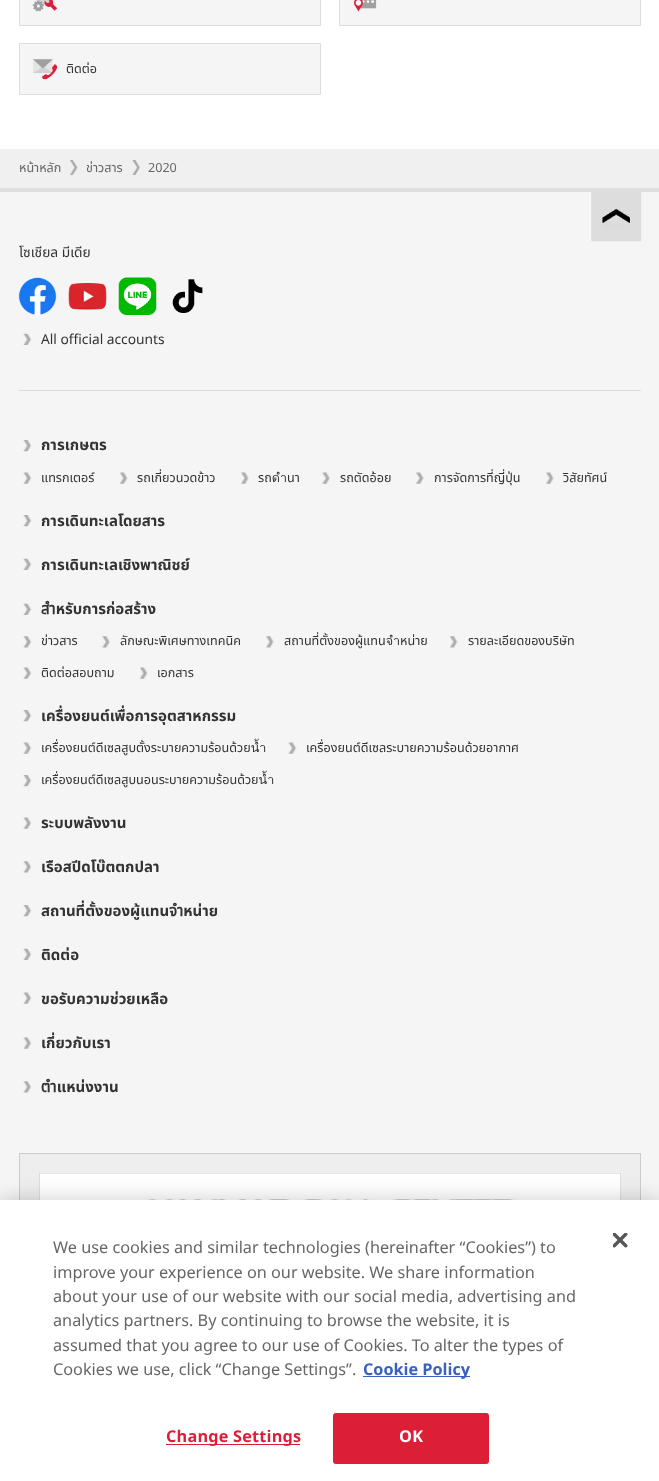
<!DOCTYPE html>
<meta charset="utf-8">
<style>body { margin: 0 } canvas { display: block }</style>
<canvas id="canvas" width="659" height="1481"></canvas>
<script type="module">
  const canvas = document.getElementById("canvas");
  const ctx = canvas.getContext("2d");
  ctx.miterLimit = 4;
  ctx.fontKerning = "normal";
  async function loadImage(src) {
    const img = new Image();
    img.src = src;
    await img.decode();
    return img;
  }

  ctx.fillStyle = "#ffffff";
  ctx.fillRect(0, 0, 659, 1481);
  ctx.fillStyle = "#f5f5f5";
  ctx.beginPath();
  ctx.rect(19.5, -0.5, 301, 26);
  ctx.fill();
  ctx.strokeStyle = "#dddddd";
  ctx.stroke();
  ctx.drawImage(await loadImage("img1.png"), 32, 0, 26, 12);
  ctx.beginPath();
  ctx.rect(339.5, -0.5, 301, 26);
  ctx.fill();
  ctx.stroke();
  ctx.drawImage(await loadImage("img2.png"), 353, 0, 24, 12);
  ctx.beginPath();
  ctx.rect(19.5, 43.5, 301, 51);
  ctx.fill();
  ctx.stroke();
  ctx.drawImage(await loadImage("img3.png"), 33, 59, 25, 21);
  ctx.font = "12.6px Noto Sans Thai";
  ctx.fillStyle = "#333333";
  ctx.fillText("ติดต่อ", 66, 73);
  ctx.fillStyle = "#f0f0f0";
  ctx.fillRect(0, 149, 659, 39);
  ctx.fillStyle = "#666666";
  ctx.fillText("หน้าหลัก", 19, 172);
  ctx.drawImage(await loadImage("img4.png"), 70, 160, 8, 15);
  ctx.fillText("ข่าวสาร", 86, 172);
  ctx.drawImage(await loadImage("img5.png"), 132, 160, 8, 15);
  ctx.fillText("2020", 148, 172);
  ctx.fillStyle = "#f5f5f5";
  ctx.fillRect(0, 192, 659, 1008);
  ctx.fillStyle = "#dddddd";
  ctx.fillRect(0, 188, 659, 4);
  ctx.drawImage(await loadImage("img6.png"), 591, 192, 51, 50);
  ctx.fillRect(19, 390, 622, 1);
  ctx.font = "13.75px Noto Sans Thai";
  ctx.fillStyle = "#333333";
  ctx.fillText("โซเชียล มีเดีย", 19, 257);
  ctx.drawImage(await loadImage("img7.png"), 18, 277, 39, 38);
  ctx.drawImage(await loadImage("img8.png"), 68, 283, 39, 27);
  ctx.drawImage(await loadImage("img9.png"), 118, 277, 39, 38);
  ctx.drawImage(await loadImage("img10.png"), 172, 279, 31, 34);
  ctx.drawImage(await loadImage("img11.png"), 23, 333, 9, 12);
  ctx.fillText("All official accounts", 41, 344);
  ctx.drawImage(await loadImage("img12.png"), 23, 440, 9, 12);
  ctx.font = "bold 15px Noto Sans Thai";
  ctx.fillText("การเกษตร", 41, 450);
  ctx.drawImage(await loadImage("img13.png"), 23, 472, 9, 12);
  ctx.font = "12.6px Noto Sans Thai";
  ctx.fillText("แทรกเตอร์", 41, 482);
  ctx.drawImage(await loadImage("img14.png"), 120, 472, 8, 12);
  ctx.fillText("รถเกี่ยวนวดข้าว", 137, 482);
  ctx.drawImage(await loadImage("img15.png"), 241, 472, 8, 12);
  ctx.fillText("รถดำนา", 258, 482);
  ctx.drawImage(await loadImage("img16.png"), 322, 472, 8, 12);
  ctx.fillText("รถตัดอ้อย", 340, 482);
  ctx.drawImage(await loadImage("img15.png"), 416, 472, 8, 12);
  ctx.fillText("การจัดการที่ญี่ปุ่น", 434, 482);
  ctx.drawImage(await loadImage("img15.png"), 546, 472, 8, 12);
  ctx.fillText("วิสัยทัศน์", 563, 482);
  ctx.drawImage(await loadImage("img12.png"), 23, 515, 9, 12);
  ctx.font = "bold 15px Noto Sans Thai";
  ctx.fillText("การเดินทะเลโดยสาร", 41, 526);
  ctx.drawImage(await loadImage("img11.png"), 23, 558, 9, 12);
  ctx.fillText("การเดินทะเลเชิงพาณิชย์", 41, 570);
  ctx.drawImage(await loadImage("img11.png"), 23, 603, 9, 12);
  ctx.fillText("สำหรับการก่อสร้าง", 41, 614);
  ctx.drawImage(await loadImage("img17.png"), 23, 636, 9, 12);
  ctx.font = "12.6px Noto Sans Thai";
  ctx.fillText("ข่าวสาร", 41, 645);
  ctx.drawImage(await loadImage("img18.png"), 102, 636, 8, 12);
  ctx.fillText("ลักษณะพิเศษทางเทคนิค", 120, 645);
  ctx.drawImage(await loadImage("img19.png"), 266, 636, 8, 12);
  ctx.fillText("สถานที่ตั้งของผู้แทนจำหน่าย", 284, 645);
  ctx.drawImage(await loadImage("img20.png"), 450, 636, 8, 12);
  ctx.fillText("รายละเอียดของบริษัท", 468, 645);
  ctx.drawImage(await loadImage("img13.png"), 23, 667, 9, 12);
  ctx.fillText("ติดต่อสอบถาม", 41, 677);
  ctx.drawImage(await loadImage("img14.png"), 140, 667, 8, 12);
  ctx.fillText("เอกสาร", 157, 677);
  ctx.drawImage(await loadImage("img12.png"), 23, 710, 9, 12);
  ctx.font = "bold 15px Noto Sans Thai";
  ctx.fillText("เครื่องยนต์เพื่อการอุตสาหกรรม", 41, 721);
  ctx.drawImage(await loadImage("img13.png"), 23, 742, 9, 12);
  ctx.font = "12.6px Noto Sans Thai";
  ctx.fillText("เครื่องยนต์ดีเซลสูบตั้งระบายความร้อนด้วยน้ำ", 41, 752);
  ctx.drawImage(await loadImage("img21.png"), 288, 742, 9, 12);
  ctx.fillText("เครื่องยนต์ดีเซลระบายความร้อนด้วยอากาศ", 306, 752);
  ctx.drawImage(await loadImage("img12.png"), 23, 775, 9, 12);
  ctx.fillText("เครื่องยนต์ดีเซลสูบนอนระบายความร้อนด้วยน้ำ", 41, 784);
  ctx.drawImage(await loadImage("img13.png"), 23, 817, 9, 12);
  ctx.font = "bold 15px Noto Sans Thai";
  ctx.fillText("ระบบพลังงาน", 41, 828);
  ctx.drawImage(await loadImage("img17.png"), 23, 861, 9, 12);
  ctx.fillText("เรือสปีดโบ๊ตตกปลา", 41, 872);
  ctx.drawImage(await loadImage("img12.png"), 23, 905, 9, 12);
  ctx.fillText("สถานที่ตั้งของผู้แทนจำหน่าย", 41, 916);
  ctx.drawImage(await loadImage("img11.png"), 23, 948, 9, 12);
  ctx.fillText("ติดต่อ", 41, 960);
  ctx.drawImage(await loadImage("img13.png"), 23, 992, 9, 12);
  ctx.fillText("ขอรับความช่วยเหลือ", 41, 1004);
  ctx.drawImage(await loadImage("img22.png"), 23, 1037, 9, 12);
  ctx.fillText("เกี่ยวกับเรา", 41, 1048);
  ctx.drawImage(await loadImage("img17.png"), 23, 1081, 9, 12);
  ctx.fillText("ตำแหน่งงาน", 41, 1092);
  ctx.fillStyle = "#eeeeee";
  ctx.fillRect(20, 1154, 620, 46);
  ctx.strokeStyle = "#cccccc";
  ctx.strokeRect(19.5, 1153.5, 621, 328);
  ctx.strokeStyle = "#dddddd";
  ctx.strokeRect(39.5, 1173.5, 581, 225);
  ctx.drawImage(await loadImage("img23.png"), 40, 1173, 580, 27);
  ctx.fillStyle = "rgba(0, 0, 0, 0.2)";
  ctx.filter = "blur(11px)";
  ctx.beginPath();
  ctx.rect(0, 1200, 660, 281);
  ctx.fill();
  ctx.filter = "none";
  ctx.fillStyle = "#ffffff";
  ctx.fillRect(0, 1200, 659, 281);
  ctx.font = "16.25px Noto Sans Thai";
  ctx.fillStyle = "#666666";
  ctx.fillText("We use cookies and similar technologies (hereinafter “Cookies”) to", 53, 1253);
  ctx.fillText("improve your experience on our website. We share information", 53, 1278);
  ctx.fillText("about your use of our website with our social media, advertising and", 53, 1302);
  ctx.fillText("analytics partners. By continuing to browse the website, it is", 53, 1326);
  ctx.fillText("assumed that you agree to our use of Cookies. To alter the types of", 53, 1351);
  ctx.fillText("Cookies we use, click “Change Settings”.", 53, 1375);
  ctx.fillStyle = "#3860be";
  ctx.fillRect(363, 1376, 107, 1);
  ctx.font = "bold 16.25px Noto Sans Thai";
  ctx.fillText("Cookie Policy", 363, 1375);
  ctx.fillStyle = "#dc1e37";
  ctx.fillRect(166, 1444, 134, 1);
  ctx.letterSpacing = "0.2px";
  ctx.fillText("Change Settings", 166, 1442);
  ctx.beginPath();
  ctx.roundRect(333.5, 1413.5, 155, 50, 2);
  ctx.fill();
  ctx.strokeStyle = "#dc1e37";
  ctx.stroke();
  ctx.fillStyle = "#ffffff";
  ctx.fillText("OK", 399, 1442);
  ctx.drawImage(await loadImage("img24.png"), 613, 1233, 15, 15);
</script>
